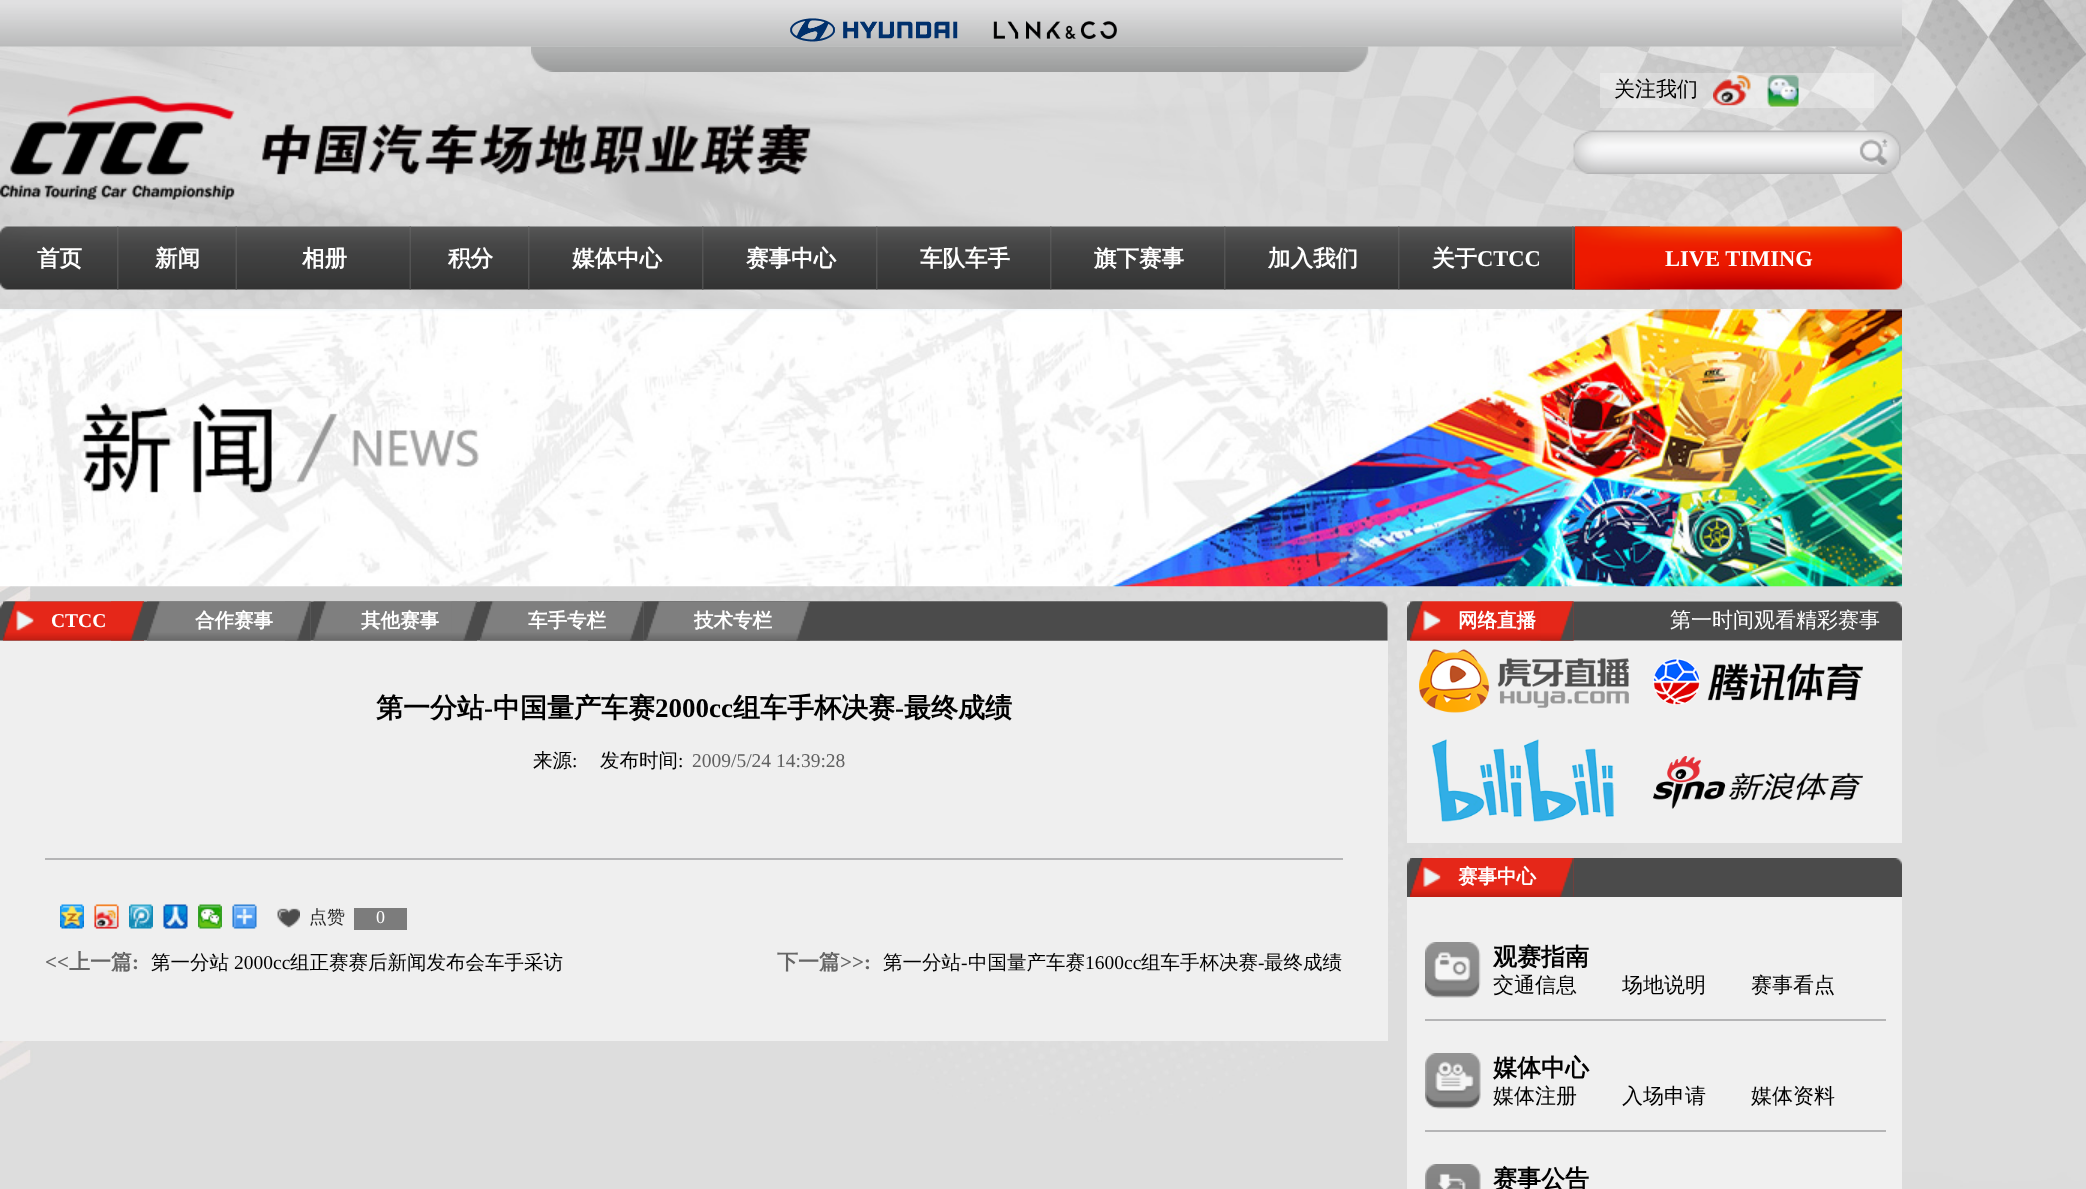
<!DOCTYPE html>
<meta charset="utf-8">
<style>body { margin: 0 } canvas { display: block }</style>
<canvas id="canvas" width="2086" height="1189"></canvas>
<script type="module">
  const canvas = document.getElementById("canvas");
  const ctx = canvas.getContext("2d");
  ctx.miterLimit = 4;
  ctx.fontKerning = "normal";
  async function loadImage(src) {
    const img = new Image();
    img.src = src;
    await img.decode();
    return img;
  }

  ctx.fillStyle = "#ffffff";
  ctx.fillRect(0, 0, 2086, 1189);
  ctx.drawImage(await loadImage("img1.png"), 0, 0, 2086, 1189);
  ctx.drawImage(await loadImage("img2.png"), 0, 0, 1902, 47);
  ctx.drawImage(await loadImage("img3.png"), 531, 46, 838, 26);
  ctx.drawImage(await loadImage("img4.png"), 790, 18, 168, 24);
  ctx.drawImage(await loadImage("img5.png"), 993, 21, 124, 19);
  ctx.fillStyle = "rgba(255, 255, 255, 0.3)";
  ctx.fillRect(1600, 73, 274, 35);
  ctx.font = "500 21px WenQuanYi Zen Hei";
  ctx.fillStyle = "#000000";
  ctx.fillText("关注我们", 1614, 96);
  ctx.drawImage(await loadImage("img6.png"), 1713, 75, 38, 31);
  ctx.drawImage(await loadImage("img7.png"), 1767, 75, 32, 32);
  ctx.drawImage(await loadImage("img8.png"), 1573, 130, 281, 44);
  ctx.drawImage(await loadImage("img9.png"), 1854, 130, 47, 44);
  ctx.drawImage(await loadImage("img10.png"), 0, 95, 235, 105);
  ctx.drawImage(await loadImage("img11.png"), 261, 123, 550, 53);
  ctx.drawImage(await loadImage("img12.png"), 0, 226, 1650, 64);
  ctx.drawImage(await loadImage("img13.png"), 117, 226, 2, 64);
  ctx.font = "bold 22.5px WenQuanYi Zen Hei";
  ctx.fillStyle = "#ffffff";
  ctx.fillText("首页", 37, 266);
  ctx.drawImage(await loadImage("img14.png"), 235, 226, 2, 64);
  ctx.fillText("新闻", 155, 266);
  ctx.drawImage(await loadImage("img15.png"), 409, 226, 2, 64);
  ctx.fillText("相册", 302, 266);
  ctx.drawImage(await loadImage("img16.png"), 528, 226, 2, 64);
  ctx.fillText("积分", 448, 266);
  ctx.drawImage(await loadImage("img17.png"), 702, 226, 2, 64);
  ctx.fillText("媒体中心", 572, 266);
  ctx.drawImage(await loadImage("img18.png"), 876, 226, 2, 64);
  ctx.fillText("赛事中心", 746, 266);
  ctx.drawImage(await loadImage("img19.png"), 1050, 226, 2, 64);
  ctx.fillText("车队车手", 920, 266);
  ctx.drawImage(await loadImage("img20.png"), 1224, 226, 2, 64);
  ctx.fillText("旗下赛事", 1094, 266);
  ctx.drawImage(await loadImage("img21.png"), 1398, 226, 2, 64);
  ctx.fillText("加入我们", 1268, 266);
  ctx.drawImage(await loadImage("img22.png"), 1572, 226, 2, 64);
  ctx.fillText("关于", 1432, 266);
  ctx.font = "bold 22.5px Liberation Serif";
  ctx.fillText("CTCC", 1477, 266);
  ctx.drawImage(await loadImage("img23.png"), 1575, 226, 327, 64);
  ctx.fillText("LIVE TIMING", 1665, 266);
  ctx.drawImage(await loadImage("img24.png"), 0, 309, 1902, 278);
  ctx.drawImage(await loadImage("img25.png"), 0, 601, 1350, 40);
  ctx.drawImage(await loadImage("img26.png"), 588, 601, 800, 40);
  ctx.drawImage(await loadImage("img27.png"), 3, 601, 141, 40);
  ctx.drawImage(await loadImage("img28.png"), 111, 601, 33, 40);
  ctx.font = "bold 19.5px Liberation Serif";
  ctx.fillText("CTCC", 51, 627);
  ctx.drawImage(await loadImage("img29.png"), 147, 601, 164, 40);
  ctx.drawImage(await loadImage("img30.png"), 285, 601, 26, 40);
  ctx.font = "bold 19.5px WenQuanYi Zen Hei";
  ctx.fillText("合作赛事", 195, 627);
  ctx.drawImage(await loadImage("img31.png"), 313, 601, 164, 40);
  ctx.drawImage(await loadImage("img32.png"), 451, 601, 26, 40);
  ctx.fillText("其他赛事", 361, 627);
  ctx.drawImage(await loadImage("img33.png"), 480, 601, 164, 40);
  ctx.drawImage(await loadImage("img34.png"), 618, 601, 26, 40);
  ctx.fillText("车手专栏", 528, 627);
  ctx.drawImage(await loadImage("img35.png"), 646, 601, 164, 39);
  ctx.drawImage(await loadImage("img36.png"), 785, 601, 25, 40);
  ctx.fillText("技术专栏", 694, 627);
  ctx.fillStyle = "#efefef";
  ctx.fillRect(0, 641, 1388, 400);
  ctx.font = "bold 27px WenQuanYi Zen Hei";
  ctx.fillStyle = "#000000";
  ctx.fillText("第一分站", 376, 717);
  ctx.font = "bold 27px Liberation Serif";
  ctx.fillText("-", 484, 717);
  ctx.font = "bold 27px WenQuanYi Zen Hei";
  ctx.fillText("中国量产车赛", 493, 717);
  ctx.font = "bold 27px Liberation Serif";
  ctx.fillText("2000cc", 655, 717);
  ctx.font = "bold 27px WenQuanYi Zen Hei";
  ctx.fillText("组车手杯决赛", 733, 717);
  ctx.font = "bold 27px Liberation Serif";
  ctx.fillText("-", 895, 717);
  ctx.font = "bold 27px WenQuanYi Zen Hei";
  ctx.fillText("最终成绩", 904, 717);
  ctx.font = "500 19.5px WenQuanYi Zen Hei";
  ctx.fillText("来源", 533, 767);
  ctx.font = "19.5px Liberation Serif";
  ctx.fillText(":", 572, 767);
  ctx.font = "500 19.5px WenQuanYi Zen Hei";
  ctx.fillText("发布时间", 600, 767);
  ctx.font = "19.5px Liberation Serif";
  ctx.fillText(":", 678, 767);
  ctx.fillStyle = "#606060";
  ctx.fillText("2009/5/24 14:39:28", 692, 767);
  ctx.fillStyle = "#b5b5b6";
  ctx.fillRect(45, 858, 1298, 2);
  ctx.drawImage(await loadImage("img37.png"), 60, 904, 24, 25);
  ctx.drawImage(await loadImage("img38.png"), 94, 904, 25, 25);
  ctx.drawImage(await loadImage("img39.png"), 129, 904, 24, 25);
  ctx.drawImage(await loadImage("img40.png"), 163, 904, 25, 25);
  ctx.drawImage(await loadImage("img41.png"), 198, 904, 24, 25);
  ctx.drawImage(await loadImage("img42.png"), 232, 904, 25, 25);
  ctx.drawImage(await loadImage("img43.png"), 277, 908, 23, 20);
  ctx.font = "500 18px WenQuanYi Zen Hei";
  ctx.fillStyle = "#282828";
  ctx.fillText("点赞", 309, 923);
  ctx.fillStyle = "#7c7c7c";
  ctx.fillRect(354, 908, 53, 22);
  ctx.font = "18px Liberation Serif";
  ctx.fillStyle = "#ffffff";
  ctx.fillText("0", 376, 923);
  ctx.font = "bold 21px Liberation Serif";
  ctx.fillStyle = "#666666";
  ctx.fillText("<<", 45, 969);
  ctx.font = "bold 21px WenQuanYi Zen Hei";
  ctx.fillText("上一篇", 69, 969);
  ctx.font = "bold 21px Liberation Serif";
  ctx.fillText(":", 132, 969);
  ctx.font = "500 19.5px WenQuanYi Zen Hei";
  ctx.fillStyle = "#000000";
  ctx.fillText("第一分站", 151, 969);
  ctx.font = "19.5px Liberation Serif";
  ctx.fillText("2000cc", 234, 969);
  ctx.font = "500 19.5px WenQuanYi Zen Hei";
  ctx.fillText("组正赛赛后新闻发布会车手采访", 290, 969);
  ctx.font = "bold 21px WenQuanYi Zen Hei";
  ctx.fillStyle = "#666666";
  ctx.fillText("下一篇", 777, 969);
  ctx.font = "bold 21px Liberation Serif";
  ctx.fillText(">>:", 840, 969);
  ctx.font = "500 19.5px WenQuanYi Zen Hei";
  ctx.fillStyle = "#000000";
  ctx.fillText("第一分站", 883, 969);
  ctx.font = "19.5px Liberation Serif";
  ctx.fillText("-", 961, 969);
  ctx.font = "500 19.5px WenQuanYi Zen Hei";
  ctx.fillText("中国量产车赛", 968, 969);
  ctx.font = "19.5px Liberation Serif";
  ctx.fillText("1600cc", 1085, 969);
  ctx.font = "500 19.5px WenQuanYi Zen Hei";
  ctx.fillText("组车手杯决赛", 1141, 969);
  ctx.font = "19.5px Liberation Serif";
  ctx.fillText("-", 1258, 969);
  ctx.font = "500 19.5px WenQuanYi Zen Hei";
  ctx.fillText("最终成绩", 1264, 969);
  ctx.fillStyle = "#f0f0f0";
  ctx.fillRect(1407, 602, 495, 241);
  ctx.drawImage(await loadImage("img44.png"), 1407, 601, 495, 40);
  ctx.drawImage(await loadImage("img45.png"), 1410, 601, 164, 40);
  ctx.drawImage(await loadImage("img46.png"), 1540, 601, 34, 40);
  ctx.font = "bold 19.5px WenQuanYi Zen Hei";
  ctx.fillStyle = "#ffffff";
  ctx.fillText("网络直播", 1458, 627);
  ctx.font = "500 21px WenQuanYi Zen Hei";
  ctx.fillText("第一时间观看精彩赛事", 1670, 627);
  ctx.drawImage(await loadImage("img47.png"), 1419, 649, 210, 64);
  ctx.drawImage(await loadImage("img48.png"), 1653, 658, 210, 47);
  ctx.drawImage(await loadImage("img49.png"), 1431, 739, 183, 83);
  ctx.drawImage(await loadImage("img50.png"), 1653, 756, 210, 53);
  ctx.drawImage(await loadImage("img51.png"), 1407, 858, 495, 39);
  ctx.drawImage(await loadImage("img52.png"), 1410, 858, 164, 39);
  ctx.drawImage(await loadImage("img53.png"), 1559, 858, 15, 39);
  ctx.font = "bold 19.5px WenQuanYi Zen Hei";
  ctx.fillText("赛事中心", 1458, 883);
  ctx.fillStyle = "#f0f0f0";
  ctx.fillRect(1407, 897, 495, 292);
  ctx.drawImage(await loadImage("img54.png"), 1425, 942, 56, 56);
  ctx.fillStyle = "#b5b5b6";
  ctx.fillRect(1425, 1019, 461, 2);
  ctx.font = "bold 24px WenQuanYi Zen Hei";
  ctx.fillStyle = "#000000";
  ctx.fillText("观赛指南", 1493, 965);
  ctx.font = "500 21px WenQuanYi Zen Hei";
  ctx.fillText("交通信息", 1493, 992);
  ctx.fillText("场地说明", 1622, 992);
  ctx.fillText("赛事看点", 1751, 992);
  ctx.drawImage(await loadImage("img55.png"), 1425, 1053, 56, 56);
  ctx.fillStyle = "#b5b5b6";
  ctx.fillRect(1425, 1130, 461, 2);
  ctx.font = "bold 24px WenQuanYi Zen Hei";
  ctx.fillStyle = "#000000";
  ctx.fillText("媒体中心", 1493, 1076);
  ctx.font = "500 21px WenQuanYi Zen Hei";
  ctx.fillText("媒体注册", 1493, 1103);
  ctx.fillText("入场申请", 1622, 1103);
  ctx.fillText("媒体资料", 1751, 1103);
  ctx.drawImage(await loadImage("img56.png"), 1425, 1164, 56, 25);
  ctx.font = "bold 24px WenQuanYi Zen Hei";
  ctx.fillText("赛事公告", 1493, 1187);
</script>
